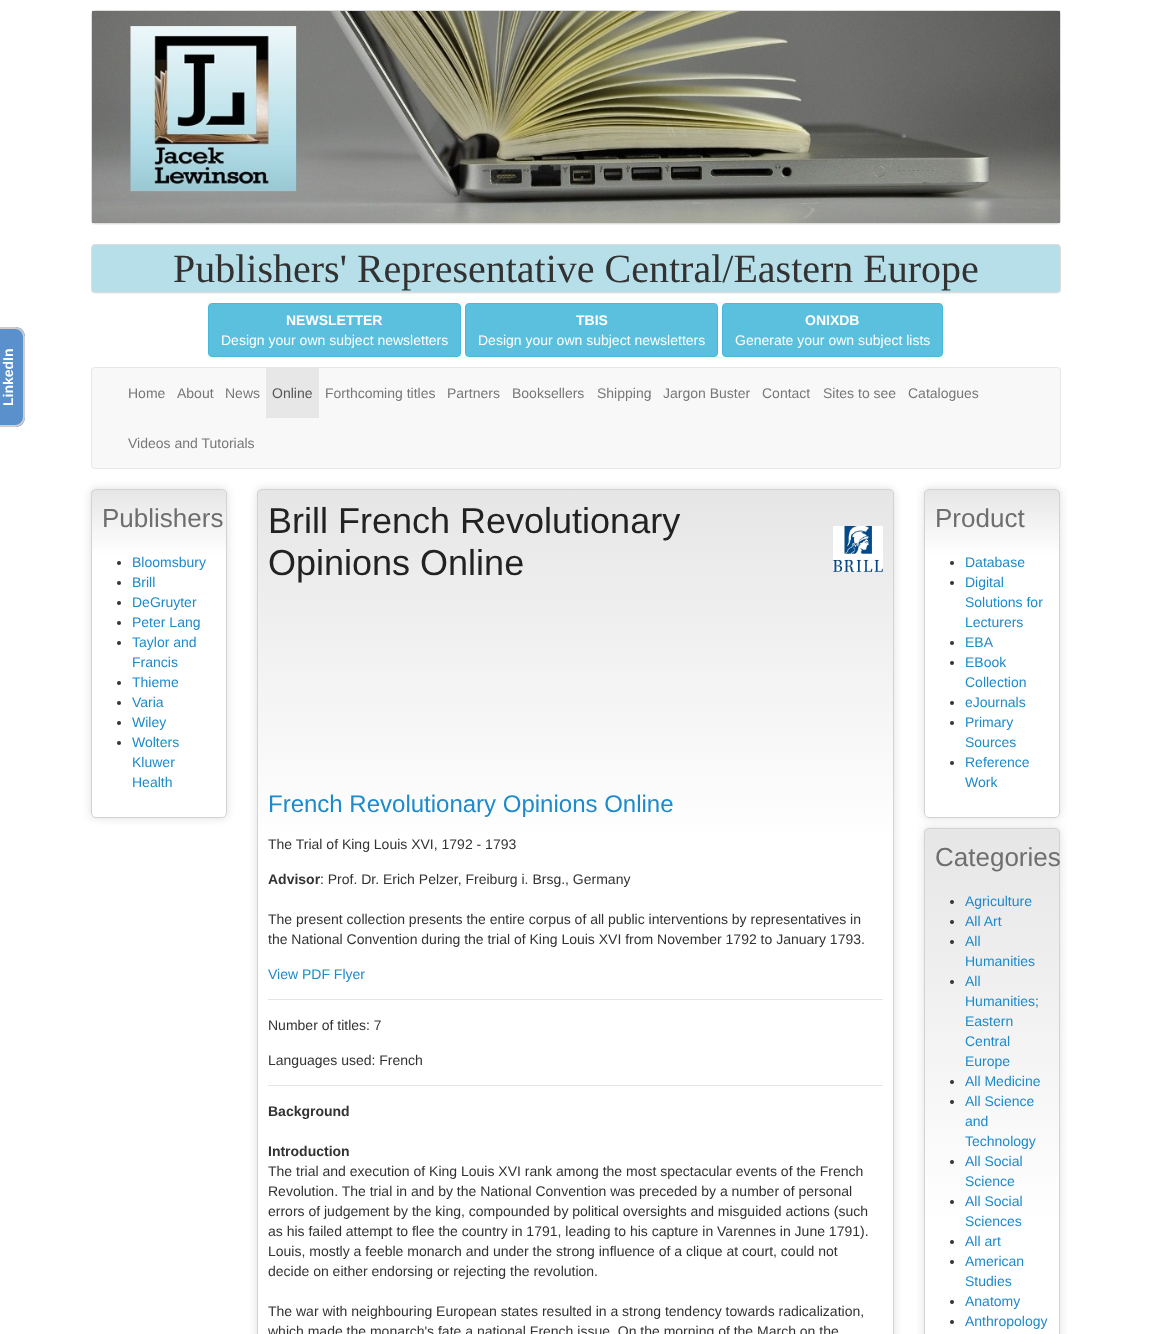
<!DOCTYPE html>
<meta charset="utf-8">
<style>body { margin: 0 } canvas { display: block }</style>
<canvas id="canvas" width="1151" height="1334"></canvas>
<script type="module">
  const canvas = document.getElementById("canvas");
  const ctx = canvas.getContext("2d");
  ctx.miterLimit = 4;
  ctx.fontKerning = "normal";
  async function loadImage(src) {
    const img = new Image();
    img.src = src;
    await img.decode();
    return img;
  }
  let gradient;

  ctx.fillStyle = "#ffffff";
  ctx.fillRect(0, 0, 1151, 1334);
  ctx.fillStyle = "rgba(0, 0, 0, 0.05)";
  ctx.filter = "blur(0.5px)";
  ctx.beginPath();
  ctx.roundRect(91, 11, 970, 214, 4);
  ctx.fill();
  ctx.filter = "none";
  ctx.beginPath();
  ctx.roundRect(91.5, 10.5, 969, 213, 3.5);
  ctx.strokeStyle = "#dddddd";
  ctx.stroke();
  ctx.drawImage(await loadImage("img1.png"), 92, 11, 968, 212);
  ctx.filter = "blur(0.5px)";
  ctx.beginPath();
  ctx.roundRect(91, 245, 970, 49, 4);
  ctx.fill();
  ctx.filter = "none";
  ctx.fillStyle = "#b7dfe9";
  ctx.beginPath();
  ctx.roundRect(91.5, 244.5, 969, 48, 3.5);
  ctx.fill();
  ctx.stroke();
  ctx.font = "40px Tinos";
  ctx.fillStyle = "#323232";
  ctx.fillText("Publishers' Representative Central/Eastern Europe", 173, 282);
  ctx.fillStyle = "#5bc0de";
  ctx.beginPath();
  ctx.roundRect(208.5, 303.5, 252, 53, 3.5);
  ctx.fill();
  ctx.strokeStyle = "#46b8da";
  ctx.stroke();
  ctx.font = "bold 14px Liberation Sans";
  ctx.fillStyle = "#ffffff";
  ctx.fillText("NEWSLETTER", 286, 325);
  ctx.font = "14px Liberation Sans";
  ctx.fillText("Design your own subject newsletters", 221, 345);
  ctx.fillStyle = "#5bc0de";
  ctx.beginPath();
  ctx.roundRect(465.5, 303.5, 252, 53, 3.5);
  ctx.fill();
  ctx.stroke();
  ctx.font = "bold 14px Liberation Sans";
  ctx.fillStyle = "#ffffff";
  ctx.fillText("TBIS", 576, 325);
  ctx.font = "14px Liberation Sans";
  ctx.fillText("Design your own subject newsletters", 478, 345);
  ctx.fillStyle = "#5bc0de";
  ctx.beginPath();
  ctx.roundRect(722.5, 303.5, 220, 53, 3.5);
  ctx.fill();
  ctx.stroke();
  ctx.font = "bold 14px Liberation Sans";
  ctx.fillStyle = "#ffffff";
  ctx.fillText("ONIXDB", 805, 325);
  ctx.font = "14px Liberation Sans";
  ctx.fillText("Generate your own subject lists", 735, 345);
  ctx.fillStyle = "#5a90cb";
  ctx.beginPath();
  ctx.moveTo(-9, 417);
  ctx.lineTo(-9, 337);
  ctx.bezierCurveTo(-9, 331, -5, 327, 1, 327);
  ctx.lineTo(15, 327);
  ctx.bezierCurveTo(21, 327, 25, 331, 25, 337);
  ctx.lineTo(25, 417);
  ctx.bezierCurveTo(25, 423, 21, 427, 15, 427);
  ctx.lineTo(1, 427);
  ctx.bezierCurveTo(-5, 427, -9, 423, -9, 417);
  ctx.closePath();
  ctx.fill();
  ctx.beginPath();
  ctx.moveTo(-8, 417);
  ctx.lineTo(-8, 337);
  ctx.bezierCurveTo(-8, 332, -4, 328, 1, 328);
  ctx.lineTo(15, 328);
  ctx.bezierCurveTo(20, 328, 24, 332, 24, 337);
  ctx.lineTo(24, 417);
  ctx.bezierCurveTo(24, 422, 20, 426, 15, 426);
  ctx.lineTo(1, 426);
  ctx.bezierCurveTo(-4, 426, -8, 422, -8, 417);
  ctx.closePath();
  ctx.strokeStyle = "#cecece";
  ctx.lineWidth = 2;
  ctx.stroke();
  ctx.font = "bold 14px Liberation Sans";
  ctx.fillStyle = "#ffffff";
  ctx.save();
  ctx.translate(13, 406);
  ctx.rotate(-90 * Math.PI / 180);
  ctx.fillText("LinkedIn", 0, 0);
  ctx.restore();
  ctx.fillStyle = "#f8f8f8";
  ctx.beginPath();
  ctx.roundRect(91.5, 367.5, 969, 101, 3.5);
  ctx.fill();
  ctx.strokeStyle = "#e7e7e7";
  ctx.lineWidth = 1;
  ctx.stroke();
  ctx.font = "14px Liberation Sans";
  ctx.fillStyle = "#777777";
  ctx.fillText("Home", 128, 398);
  ctx.fillText("About", 177, 398);
  ctx.fillText("News", 225, 398);
  ctx.fillStyle = "#e7e7e7";
  ctx.fillRect(266, 368, 53, 50);
  ctx.fillStyle = "#555555";
  ctx.fillText("Online", 272, 398);
  ctx.fillStyle = "#777777";
  ctx.fillText("Forthcoming titles", 325, 398);
  ctx.fillText("Partners", 447, 398);
  ctx.fillText("Booksellers", 512, 398);
  ctx.fillText("Shipping", 597, 398);
  ctx.fillText("Jargon Buster", 663, 398);
  ctx.fillText("Contact", 762, 398);
  ctx.fillText("Sites to see", 823, 398);
  ctx.fillText("Catalogues", 908, 398);
  ctx.fillText("Videos and Tutorials", 128, 448);
  ctx.fillStyle = "#dddddd";
  ctx.filter = "blur(4.5px)";
  ctx.beginPath();
  ctx.roundRect(91, 489, 136, 329, 5);
  ctx.fill();
  ctx.filter = "none";
  ctx.save();
  ctx.beginPath();
  ctx.roundRect(91, 489, 136, 329, 5);
  ctx.clip();
  gradient = ctx.createLinearGradient(159, 490, 159, 817);
  gradient.addColorStop(0, "#e6e6e6");
  gradient.addColorStop(0.2, "#ffffff");
  ctx.fillStyle = gradient;
  ctx.fillRect(91, 490, 136, 327);
  ctx.restore();
  ctx.beginPath();
  ctx.roundRect(91.5, 489.5, 135, 328, 4.5);
  ctx.strokeStyle = "#d3d3d3";
  ctx.stroke();
  ctx.font = "26px Liberation Sans";
  ctx.fillStyle = "#6e6e6e";
  ctx.fillText("Publishers", 102, 527);
  ctx.fillStyle = "#333333";
  ctx.beginPath();
  ctx.arc(119, 563, 2, 0, Math.PI * 2);
  ctx.fill();
  ctx.font = "14px Liberation Sans";
  ctx.fillStyle = "#1d8acb";
  ctx.fillText("Bloomsbury", 132, 567);
  ctx.fillStyle = "#333333";
  ctx.beginPath();
  ctx.arc(119, 583, 2, 0, Math.PI * 2);
  ctx.fill();
  ctx.fillStyle = "#1d8acb";
  ctx.fillText("Brill", 132, 587);
  ctx.fillStyle = "#333333";
  ctx.beginPath();
  ctx.arc(119, 603, 2, 0, Math.PI * 2);
  ctx.fill();
  ctx.fillStyle = "#1d8acb";
  ctx.fillText("DeGruyter", 132, 607);
  ctx.fillStyle = "#333333";
  ctx.beginPath();
  ctx.arc(119, 623, 2, 0, Math.PI * 2);
  ctx.fill();
  ctx.fillStyle = "#1d8acb";
  ctx.fillText("Peter Lang", 132, 627);
  ctx.fillStyle = "#333333";
  ctx.beginPath();
  ctx.arc(119, 643, 2, 0, Math.PI * 2);
  ctx.fill();
  ctx.fillStyle = "#1d8acb";
  ctx.fillText("Taylor and", 132, 647);
  ctx.fillText("Francis", 132, 667);
  ctx.fillStyle = "#333333";
  ctx.beginPath();
  ctx.arc(119, 683, 2, 0, Math.PI * 2);
  ctx.fill();
  ctx.fillStyle = "#1d8acb";
  ctx.fillText("Thieme", 132, 687);
  ctx.fillStyle = "#333333";
  ctx.beginPath();
  ctx.arc(119, 703, 2, 0, Math.PI * 2);
  ctx.fill();
  ctx.fillStyle = "#1d8acb";
  ctx.fillText("Varia", 132, 707);
  ctx.fillStyle = "#333333";
  ctx.beginPath();
  ctx.arc(119, 723, 2, 0, Math.PI * 2);
  ctx.fill();
  ctx.fillStyle = "#1d8acb";
  ctx.fillText("Wiley", 132, 727);
  ctx.fillStyle = "#333333";
  ctx.beginPath();
  ctx.arc(119, 743, 2, 0, Math.PI * 2);
  ctx.fill();
  ctx.fillStyle = "#1d8acb";
  ctx.fillText("Wolters", 132, 747);
  ctx.fillText("Kluwer", 132, 767);
  ctx.fillText("Health", 132, 787);
  ctx.fillStyle = "#dddddd";
  ctx.filter = "blur(4.5px)";
  ctx.beginPath();
  ctx.roundRect(257, 489, 637, 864, 5);
  ctx.fill();
  ctx.filter = "none";
  ctx.save();
  ctx.beginPath();
  ctx.roundRect(257, 489, 637, 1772, 5);
  ctx.clip();
  gradient = ctx.createLinearGradient(575, 490, 576, 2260);
  gradient.addColorStop(0, "#e6e6e6");
  gradient.addColorStop(0.2, "#ffffff");
  ctx.fillStyle = gradient;
  ctx.fillRect(257, 490, 637, 844);
  ctx.restore();
  ctx.beginPath();
  ctx.roundRect(257.5, 489.5, 636, 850, 4.5);
  ctx.stroke();
  ctx.font = "36px Liberation Sans";
  ctx.fillStyle = "#222222";
  ctx.fillText("Brill French Revolutionary", 268, 533);
  ctx.fillText("Opinions Online", 268, 575);
  ctx.drawImage(await loadImage("img2.png"), 833, 526, 50, 46);
  ctx.font = "24px Liberation Sans";
  ctx.fillStyle = "#1d8acb";
  ctx.fillText("French Revolutionary Opinions Online", 268, 812);
  ctx.font = "14px Liberation Sans";
  ctx.fillStyle = "#323232";
  ctx.fillText("The Trial of King Louis XVI, 1792 - 1793", 268, 849);
  ctx.font = "bold 14px Liberation Sans";
  ctx.fillText("Advisor", 268, 884);
  ctx.font = "14px Liberation Sans";
  ctx.fillText(": Prof. Dr. Erich Pelzer, Freiburg i. Brsg., Germany", 320, 884);
  ctx.fillText("The present collection presents the entire corpus of all public interventions by representatives in", 268, 924);
  ctx.fillText("the National Convention during the trial of King Louis XVI from November 1792 to January 1793.", 268, 944);
  ctx.fillStyle = "#1d8acb";
  ctx.fillText("View PDF Flyer", 268, 979);
  ctx.fillStyle = "#e5e5e5";
  ctx.fillRect(268, 999, 615, 1);
  ctx.fillStyle = "#323232";
  ctx.fillText("Number of titles: 7", 268, 1030);
  ctx.fillText("Languages used: French", 268, 1065);
  ctx.fillStyle = "#e5e5e5";
  ctx.fillRect(268, 1085, 615, 1);
  ctx.font = "bold 14px Liberation Sans";
  ctx.fillStyle = "#323232";
  ctx.fillText("Background", 268, 1116);
  ctx.fillText("Introduction", 268, 1156);
  ctx.font = "14px Liberation Sans";
  ctx.fillText("The trial and execution of King Louis XVI rank among the most spectacular events of the French", 268, 1176);
  ctx.fillText("Revolution. The trial in and by the National Convention was preceded by a number of personal", 268, 1196);
  ctx.fillText("errors of judgement by the king, compounded by political oversights and misguided actions (such", 268, 1216);
  ctx.fillText("as his failed attempt to flee the country in 1791, leading to his capture in Varennes in June 1791).", 268, 1236);
  ctx.fillText("Louis, mostly a feeble monarch and under the strong influence of a clique at court, could not", 268, 1256);
  ctx.fillText("decide on either endorsing or rejecting the revolution.", 268, 1276);
  ctx.fillText("The war with neighbouring European states resulted in a strong tendency towards radicalization,", 268, 1316);
  ctx.fillText("which made the monarch's fate a national French issue. On the morning of the March on the", 268, 1336);
  ctx.fillStyle = "#dddddd";
  ctx.filter = "blur(4.5px)";
  ctx.beginPath();
  ctx.roundRect(924, 489, 136, 329, 5);
  ctx.fill();
  ctx.filter = "none";
  ctx.save();
  ctx.beginPath();
  ctx.roundRect(924, 489, 136, 329, 5);
  ctx.clip();
  gradient = ctx.createLinearGradient(992, 490, 992, 817);
  gradient.addColorStop(0, "#e6e6e6");
  gradient.addColorStop(0.2, "#ffffff");
  ctx.fillStyle = gradient;
  ctx.fillRect(924, 490, 136, 327);
  ctx.restore();
  ctx.beginPath();
  ctx.roundRect(924.5, 489.5, 135, 328, 4.5);
  ctx.stroke();
  ctx.font = "26px Liberation Sans";
  ctx.fillStyle = "#6e6e6e";
  ctx.fillText("Product", 935, 527);
  ctx.fillStyle = "#333333";
  ctx.beginPath();
  ctx.arc(952, 563, 2, 0, Math.PI * 2);
  ctx.fill();
  ctx.font = "14px Liberation Sans";
  ctx.fillStyle = "#1d8acb";
  ctx.fillText("Database", 965, 567);
  ctx.fillStyle = "#333333";
  ctx.beginPath();
  ctx.arc(952, 583, 2, 0, Math.PI * 2);
  ctx.fill();
  ctx.fillStyle = "#1d8acb";
  ctx.fillText("Digital", 965, 587);
  ctx.fillText("Solutions for", 965, 607);
  ctx.fillText("Lecturers", 965, 627);
  ctx.fillStyle = "#333333";
  ctx.beginPath();
  ctx.arc(952, 643, 2, 0, Math.PI * 2);
  ctx.fill();
  ctx.fillStyle = "#1d8acb";
  ctx.fillText("EBA", 965, 647);
  ctx.fillStyle = "#333333";
  ctx.beginPath();
  ctx.arc(952, 663, 2, 0, Math.PI * 2);
  ctx.fill();
  ctx.fillStyle = "#1d8acb";
  ctx.fillText("EBook", 965, 667);
  ctx.fillText("Collection", 965, 687);
  ctx.fillStyle = "#333333";
  ctx.beginPath();
  ctx.arc(952, 703, 2, 0, Math.PI * 2);
  ctx.fill();
  ctx.fillStyle = "#1d8acb";
  ctx.fillText("eJournals", 965, 707);
  ctx.fillStyle = "#333333";
  ctx.beginPath();
  ctx.arc(952, 723, 2, 0, Math.PI * 2);
  ctx.fill();
  ctx.fillStyle = "#1d8acb";
  ctx.fillText("Primary", 965, 727);
  ctx.fillText("Sources", 965, 747);
  ctx.fillStyle = "#333333";
  ctx.beginPath();
  ctx.arc(952, 763, 2, 0, Math.PI * 2);
  ctx.fill();
  ctx.fillStyle = "#1d8acb";
  ctx.fillText("Reference", 965, 767);
  ctx.fillText("Work", 965, 787);
  ctx.fillStyle = "#dddddd";
  ctx.filter = "blur(4.5px)";
  ctx.beginPath();
  ctx.roundRect(924, 828, 136, 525, 5);
  ctx.fill();
  ctx.filter = "none";
  ctx.save();
  ctx.beginPath();
  ctx.roundRect(924, 828, 136, 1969, 5);
  ctx.clip();
  gradient = ctx.createLinearGradient(992, 829, 992, 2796);
  gradient.addColorStop(0, "#e6e6e6");
  gradient.addColorStop(0.2, "#ffffff");
  ctx.fillStyle = gradient;
  ctx.fillRect(924, 829, 136, 505);
  ctx.restore();
  ctx.beginPath();
  ctx.roundRect(924.5, 828.5, 135, 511, 4.5);
  ctx.stroke();
  ctx.font = "26px Liberation Sans";
  ctx.fillStyle = "#6e6e6e";
  ctx.fillText("Categories", 935, 866);
  ctx.fillStyle = "#333333";
  ctx.beginPath();
  ctx.arc(952, 902, 2, 0, Math.PI * 2);
  ctx.fill();
  ctx.font = "14px Liberation Sans";
  ctx.fillStyle = "#1d8acb";
  ctx.fillText("Agriculture", 965, 906);
  ctx.fillStyle = "#333333";
  ctx.beginPath();
  ctx.arc(952, 922, 2, 0, Math.PI * 2);
  ctx.fill();
  ctx.fillStyle = "#1d8acb";
  ctx.fillText("All Art", 965, 926);
  ctx.fillStyle = "#333333";
  ctx.beginPath();
  ctx.arc(952, 942, 2, 0, Math.PI * 2);
  ctx.fill();
  ctx.fillStyle = "#1d8acb";
  ctx.fillText("All", 965, 946);
  ctx.fillText("Humanities", 965, 966);
  ctx.fillStyle = "#333333";
  ctx.beginPath();
  ctx.arc(952, 982, 2, 0, Math.PI * 2);
  ctx.fill();
  ctx.fillStyle = "#1d8acb";
  ctx.fillText("All", 965, 986);
  ctx.fillText("Humanities;", 965, 1006);
  ctx.fillText("Eastern", 965, 1026);
  ctx.fillText("Central", 965, 1046);
  ctx.fillText("Europe", 965, 1066);
  ctx.fillStyle = "#333333";
  ctx.beginPath();
  ctx.arc(952, 1082, 2, 0, Math.PI * 2);
  ctx.fill();
  ctx.fillStyle = "#1d8acb";
  ctx.fillText("All Medicine", 965, 1086);
  ctx.fillStyle = "#333333";
  ctx.beginPath();
  ctx.arc(952, 1102, 2, 0, Math.PI * 2);
  ctx.fill();
  ctx.fillStyle = "#1d8acb";
  ctx.fillText("All Science", 965, 1106);
  ctx.fillText("and", 965, 1126);
  ctx.fillText("Technology", 965, 1146);
  ctx.fillStyle = "#333333";
  ctx.beginPath();
  ctx.arc(952, 1162, 2, 0, Math.PI * 2);
  ctx.fill();
  ctx.fillStyle = "#1d8acb";
  ctx.fillText("All Social", 965, 1166);
  ctx.fillText("Science", 965, 1186);
  ctx.fillStyle = "#333333";
  ctx.beginPath();
  ctx.arc(952, 1202, 2, 0, Math.PI * 2);
  ctx.fill();
  ctx.fillStyle = "#1d8acb";
  ctx.fillText("All Social", 965, 1206);
  ctx.fillText("Sciences", 965, 1226);
  ctx.fillStyle = "#333333";
  ctx.beginPath();
  ctx.arc(952, 1242, 2, 0, Math.PI * 2);
  ctx.fill();
  ctx.fillStyle = "#1d8acb";
  ctx.fillText("All art", 965, 1246);
  ctx.fillStyle = "#333333";
  ctx.beginPath();
  ctx.arc(952, 1262, 2, 0, Math.PI * 2);
  ctx.fill();
  ctx.fillStyle = "#1d8acb";
  ctx.fillText("American", 965, 1266);
  ctx.fillText("Studies", 965, 1286);
  ctx.fillStyle = "#333333";
  ctx.beginPath();
  ctx.arc(952, 1302, 2, 0, Math.PI * 2);
  ctx.fill();
  ctx.fillStyle = "#1d8acb";
  ctx.fillText("Anatomy", 965, 1306);
  ctx.fillStyle = "#333333";
  ctx.beginPath();
  ctx.arc(952, 1322, 2, 0, Math.PI * 2);
  ctx.fill();
  ctx.fillStyle = "#1d8acb";
  ctx.fillText("Anthropology", 965, 1326);
</script>
